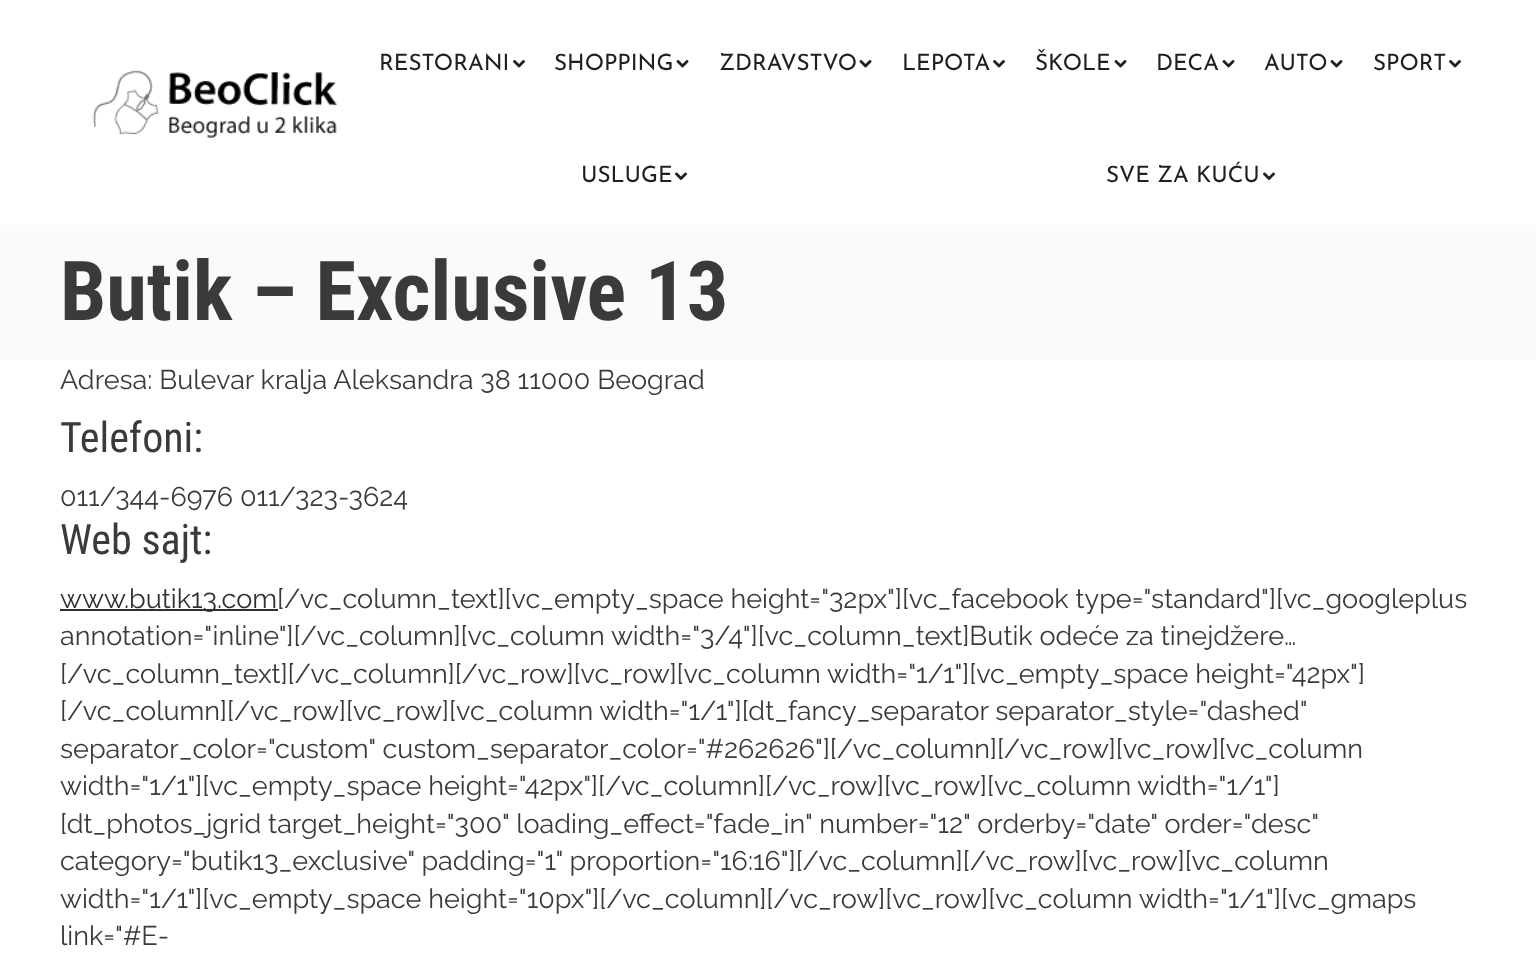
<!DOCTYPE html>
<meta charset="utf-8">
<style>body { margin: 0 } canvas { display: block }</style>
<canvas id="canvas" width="1536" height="955"></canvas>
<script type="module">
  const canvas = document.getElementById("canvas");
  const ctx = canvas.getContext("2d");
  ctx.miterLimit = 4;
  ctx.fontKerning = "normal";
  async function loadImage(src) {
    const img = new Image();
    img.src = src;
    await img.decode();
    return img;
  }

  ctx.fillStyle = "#ffffff";
  ctx.fillRect(0, 0, 1536, 955);
  ctx.drawImage(await loadImage("img1.png"), 92, 70, 245, 68);
  ctx.font = "22.5px Josefin Sans";
  ctx.fillStyle = "#202023";
  ctx.fillText("RESTORANI", 379, 70);
  ctx.drawImage(await loadImage("img2.png"), 513, 60, 12, 8);
  ctx.fillText("SHOPPING", 554, 70);
  ctx.drawImage(await loadImage("img3.png"), 676, 60, 13, 8);
  ctx.fillText("ZDRAVSTVO", 719, 70);
  ctx.drawImage(await loadImage("img3.png"), 859, 60, 13, 8);
  ctx.fillText("LEPOTA", 902, 70);
  ctx.drawImage(await loadImage("img2.png"), 993, 60, 12, 8);
  ctx.fillText("ŠKOLE", 1035, 70);
  ctx.drawImage(await loadImage("img3.png"), 1114, 60, 13, 8);
  ctx.fillText("DECA", 1156, 70);
  ctx.drawImage(await loadImage("img3.png"), 1222, 60, 13, 8);
  ctx.fillText("AUTO", 1264, 70);
  ctx.drawImage(await loadImage("img3.png"), 1330, 60, 13, 8);
  ctx.fillText("SPORT", 1373, 70);
  ctx.drawImage(await loadImage("img2.png"), 1449, 60, 12, 8);
  ctx.fillText("USLUGE", 581, 182);
  ctx.drawImage(await loadImage("img4.png"), 675, 172, 12, 8);
  ctx.fillText("SVE ZA KUĆU", 1106, 182);
  ctx.drawImage(await loadImage("img4.png"), 1263, 172, 12, 8);
  ctx.fillStyle = "#fafafa";
  ctx.fillRect(0, 225, 1536, 135);
  ctx.font = "bold 82.5px Roboto Condensed";
  ctx.fillStyle = "#3a3a3a";
  ctx.fillText("Butik – Exclusive 13", 60, 320);
  ctx.font = "27px Raleway";
  ctx.fillText("Adresa: Bulevar kralja Aleksandra 38 11000 Beograd", 60, 389);
  ctx.font = "42px Roboto Condensed";
  ctx.fillText("Telefoni:", 60, 452);
  ctx.font = "27px Raleway";
  ctx.fillText("011/344-6976 011/323-3624", 60, 506);
  ctx.font = "42px Roboto Condensed";
  ctx.fillText("Web sajt:", 60, 554);
  ctx.fillStyle = "#303030";
  ctx.fillRect(60, 609, 218, 2);
  ctx.font = "27px Raleway";
  ctx.fillText("www.butik13.com", 60, 608);
  ctx.fillStyle = "#3a3a3a";
  ctx.fillText("[/vc_column_text][vc_empty_space height=\"32px\"][vc_facebook type=\"standard\"][vc_googleplus", 277, 608);
  ctx.fillText("annotation=\"inline\"][/vc_column][vc_column width=\"3/4\"][vc_column_text]Butik odeće za tinejdžere…", 60, 645);
  ctx.fillText("[/vc_column_text][/vc_column][/vc_row][vc_row][vc_column width=\"1/1\"][vc_empty_space height=\"42px\"]", 60, 683);
  ctx.fillText("[/vc_column][/vc_row][vc_row][vc_column width=\"1/1\"][dt_fancy_separator separator_style=\"dashed\"", 60, 720);
  ctx.fillText("separator_color=\"custom\" custom_separator_color=\"#262626\"][/vc_column][/vc_row][vc_row][vc_column", 60, 758);
  ctx.fillText("width=\"1/1\"][vc_empty_space height=\"42px\"][/vc_column][/vc_row][vc_row][vc_column width=\"1/1\"]", 60, 795);
  ctx.fillText("[dt_photos_jgrid target_height=\"300\" loading_effect=\"fade_in\" number=\"12\" orderby=\"date\" order=\"desc\"", 60, 833);
  ctx.fillText("category=\"butik13_exclusive\" padding=\"1\" proportion=\"16:16\"][/vc_column][/vc_row][vc_row][vc_column", 60, 870);
  ctx.fillText("width=\"1/1\"][vc_empty_space height=\"10px\"][/vc_column][/vc_row][vc_row][vc_column width=\"1/1\"][vc_gmaps", 60, 908);
  ctx.fillText("link=\"#E-", 60, 945);
</script>
